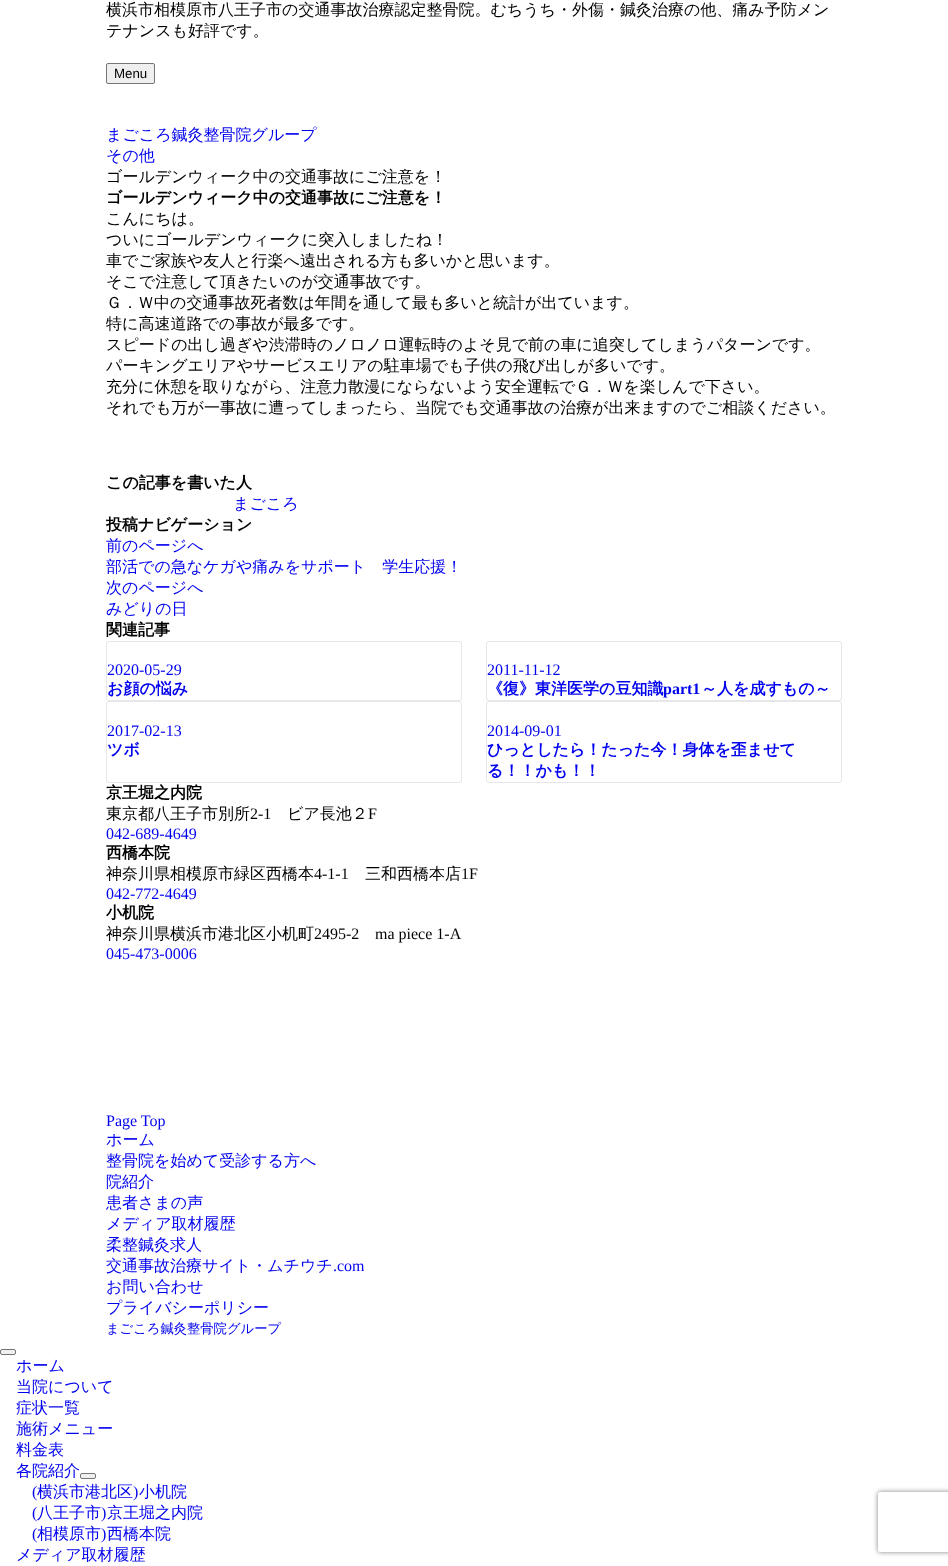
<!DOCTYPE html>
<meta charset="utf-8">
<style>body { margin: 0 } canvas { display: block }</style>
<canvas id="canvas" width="948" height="1566"></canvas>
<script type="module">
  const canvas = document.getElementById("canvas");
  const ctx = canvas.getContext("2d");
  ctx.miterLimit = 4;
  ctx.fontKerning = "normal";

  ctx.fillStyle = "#ffffff";
  ctx.fillRect(0, 0, 948, 1566);
  ctx.font = "500 16px WenQuanYi Zen Hei";
  ctx.fillStyle = "#000000";
  ctx.fillText("横浜市相模原市八王子市の交通事故治療認定整骨院。むちうち・外傷・鍼灸治療の他、痛み予防メン", 106, 15);
  ctx.fillText("テナンスも好評です。", 106, 36);
  ctx.fillStyle = "#efefef";
  ctx.beginPath();
  ctx.roundRect(106.5, 63.5, 48, 20, 1.5);
  ctx.fill();
  ctx.strokeStyle = "#767676";
  ctx.stroke();
  ctx.font = "13.3px Liberation Sans";
  ctx.fillStyle = "#000000";
  ctx.fillText("Menu", 114, 78);
  ctx.font = "500 16px WenQuanYi Zen Hei";
  ctx.fillStyle = "#0000ee";
  ctx.fillText("まごころ鍼灸整骨院グループ", 106, 140);
  ctx.fillText("その他", 106, 161);
  ctx.fillStyle = "#000000";
  ctx.fillText("ゴールデンウィーク中の交通事故にご注意を！", 106, 182);
  ctx.font = "bold 16px WenQuanYi Zen Hei";
  ctx.fillText("ゴールデンウィーク中の交通事故にご注意を！", 106, 203);
  ctx.font = "500 16px WenQuanYi Zen Hei";
  ctx.fillText("こんにちは。", 106, 224);
  ctx.fillText("ついにゴールデンウィークに突入しましたね！", 106, 245);
  ctx.fillText("車でご家族や友人と行楽へ遠出される方も多いかと思います。", 106, 266);
  ctx.fillText("そこで注意して頂きたいのが交通事故です。", 106, 287);
  ctx.fillText("Ｇ．Ｗ中の交通事故死者数は年間を通して最も多いと統計が出ています。", 106, 308);
  ctx.fillText("特に高速道路での事故が最多です。", 106, 329);
  ctx.fillText("スピードの出し過ぎや渋滞時のノロノロ運転時のよそ見で前の車に追突してしまうパターンです。", 106, 350);
  ctx.fillText("パーキングエリアやサービスエリアの駐車場でも子供の飛び出しが多いです。", 106, 371);
  ctx.fillText("充分に休憩を取りながら、注意力散漫にならないよう安全運転でＧ．Ｗを楽しんで下さい。", 106, 392);
  ctx.fillText("それでも万が一事故に遭ってしまったら、当院でも交通事故の治療が出来ますのでご相談ください。", 106, 413);
  ctx.font = "bold 16px WenQuanYi Zen Hei";
  ctx.fillText("この記事を書いた人", 106, 488);
  ctx.font = "500 16px WenQuanYi Zen Hei";
  ctx.fillStyle = "#0000ee";
  ctx.fillText("まごころ", 233, 509);
  ctx.font = "bold 16px WenQuanYi Zen Hei";
  ctx.fillStyle = "#000000";
  ctx.fillText("投稿ナビゲーション", 106, 530);
  ctx.font = "500 16px WenQuanYi Zen Hei";
  ctx.fillStyle = "#0000ee";
  ctx.fillText("前のページへ", 106, 551);
  ctx.fillText("部活での急なケガや痛みをサポート　学生応援！", 106, 572);
  ctx.fillText("次のページへ", 106, 593);
  ctx.fillText("みどりの日", 106, 614);
  ctx.font = "bold 16px WenQuanYi Zen Hei";
  ctx.fillStyle = "#000000";
  ctx.fillText("関連記事", 106, 635);
  ctx.beginPath();
  ctx.roundRect(106.5, 641.5, 355, 59, 2.5);
  ctx.strokeStyle = "#e5e7e8";
  ctx.stroke();
  ctx.font = "16px Liberation Serif";
  ctx.fillStyle = "#0000ee";
  ctx.fillText("2020-05-29", 107, 675);
  ctx.font = "bold 16px WenQuanYi Zen Hei";
  ctx.fillText("お顔の悩み", 107, 694);
  ctx.beginPath();
  ctx.roundRect(486.5, 641.5, 355, 59, 2.5);
  ctx.stroke();
  ctx.font = "16px Liberation Serif";
  ctx.fillText("2011-11-12", 487, 675);
  ctx.font = "bold 16px WenQuanYi Zen Hei";
  ctx.fillText("《復》東洋医学の豆知識", 487, 694);
  ctx.font = "bold 16px Liberation Serif";
  ctx.fillText("part1", 663, 694);
  ctx.font = "bold 16px WenQuanYi Zen Hei";
  ctx.fillText("～人を成すもの～", 701, 694);
  ctx.beginPath();
  ctx.roundRect(106.5, 701.5, 355, 81, 2.5);
  ctx.stroke();
  ctx.font = "16px Liberation Serif";
  ctx.fillText("2017-02-13", 107, 736);
  ctx.font = "bold 16px WenQuanYi Zen Hei";
  ctx.fillText("ツボ", 107, 755);
  ctx.beginPath();
  ctx.roundRect(486.5, 701.5, 355, 81, 2.5);
  ctx.stroke();
  ctx.font = "16px Liberation Serif";
  ctx.fillText("2014-09-01", 487, 736);
  ctx.font = "bold 16px WenQuanYi Zen Hei";
  ctx.fillText("ひっとしたら！たった今！身体を歪ませて", 487, 755);
  ctx.fillText("る！！かも！！", 487, 776);
  ctx.fillStyle = "#000000";
  ctx.fillText("京王堀之内院", 106, 798);
  ctx.font = "500 16px WenQuanYi Zen Hei";
  ctx.fillText("東京都八王子市別所", 106, 819);
  ctx.font = "16px Liberation Serif";
  ctx.fillText("2-1", 250, 819);
  ctx.font = "500 16px WenQuanYi Zen Hei";
  ctx.fillText("ビア長池２", 287, 819);
  ctx.font = "16px Liberation Serif";
  ctx.fillText("F", 368, 819);
  ctx.fillStyle = "#0000ee";
  ctx.fillText("042-689-4649", 106, 839);
  ctx.font = "bold 16px WenQuanYi Zen Hei";
  ctx.fillStyle = "#000000";
  ctx.fillText("西橋本院", 106, 858);
  ctx.font = "500 16px WenQuanYi Zen Hei";
  ctx.fillText("神奈川県相模原市緑区西橋本", 106, 879);
  ctx.font = "16px Liberation Serif";
  ctx.fillText("4-1-1", 314, 879);
  ctx.font = "500 16px WenQuanYi Zen Hei";
  ctx.fillText("三和西橋本店", 365, 879);
  ctx.font = "16px Liberation Serif";
  ctx.fillText("1F", 461, 879);
  ctx.fillStyle = "#0000ee";
  ctx.fillText("042-772-4649", 106, 899);
  ctx.font = "bold 16px WenQuanYi Zen Hei";
  ctx.fillStyle = "#000000";
  ctx.fillText("小机院", 106, 918);
  ctx.font = "500 16px WenQuanYi Zen Hei";
  ctx.fillText("神奈川県横浜市港北区小机町", 106, 939);
  ctx.font = "16px Liberation Serif";
  ctx.fillText("2495-2", 314, 939);
  ctx.fillText("ma piece 1-A", 375, 939);
  ctx.fillStyle = "#0000ee";
  ctx.fillText("045-473-0006", 106, 959);
  ctx.fillText("Page Top", 106, 1126);
  ctx.font = "500 16px WenQuanYi Zen Hei";
  ctx.fillText("ホーム", 106, 1145);
  ctx.fillText("整骨院を始めて受診する方へ", 106, 1166);
  ctx.fillText("院紹介", 106, 1187);
  ctx.fillText("患者さまの声", 106, 1208);
  ctx.fillText("メディア取材履歴", 106, 1229);
  ctx.fillText("柔整鍼灸求人", 106, 1250);
  ctx.fillText("交通事故治療サイト・ムチウチ", 106, 1271);
  ctx.font = "16px Liberation Serif";
  ctx.fillText(".com", 333, 1271);
  ctx.font = "500 16px WenQuanYi Zen Hei";
  ctx.fillText("お問い合わせ", 106, 1292);
  ctx.fillText("プライバシーポリシー", 106, 1313);
  ctx.font = "500 13.3px WenQuanYi Zen Hei";
  ctx.fillText("まごころ鍼灸整骨院グループ", 106, 1333);
  ctx.fillStyle = "#efefef";
  ctx.beginPath();
  ctx.roundRect(0.5, 1349.5, 15, 5, 1.5);
  ctx.fill();
  ctx.strokeStyle = "#767676";
  ctx.stroke();
  ctx.font = "500 16px WenQuanYi Zen Hei";
  ctx.fillStyle = "#0000ee";
  ctx.fillText("ホーム", 16, 1371);
  ctx.fillText("当院について", 16, 1392);
  ctx.fillText("症状一覧", 16, 1413);
  ctx.fillText("施術メニュー", 16, 1434);
  ctx.fillText("料金表", 16, 1455);
  ctx.fillText("各院紹介", 16, 1476);
  ctx.fillStyle = "#efefef";
  ctx.beginPath();
  ctx.roundRect(80.5, 1473.5, 15, 5, 1.5);
  ctx.fill();
  ctx.stroke();
  ctx.font = "16px Liberation Serif";
  ctx.fillStyle = "#0000ee";
  ctx.fillText("(", 32, 1497);
  ctx.font = "500 16px WenQuanYi Zen Hei";
  ctx.fillText("横浜市港北区", 37, 1497);
  ctx.font = "16px Liberation Serif";
  ctx.fillText(")", 133, 1497);
  ctx.font = "500 16px WenQuanYi Zen Hei";
  ctx.fillText("小机院", 139, 1497);
  ctx.font = "16px Liberation Serif";
  ctx.fillText("(", 32, 1518);
  ctx.font = "500 16px WenQuanYi Zen Hei";
  ctx.fillText("八王子市", 37, 1518);
  ctx.font = "16px Liberation Serif";
  ctx.fillText(")", 101, 1518);
  ctx.font = "500 16px WenQuanYi Zen Hei";
  ctx.fillText("京王堀之内院", 107, 1518);
  ctx.font = "16px Liberation Serif";
  ctx.fillText("(", 32, 1539);
  ctx.font = "500 16px WenQuanYi Zen Hei";
  ctx.fillText("相模原市", 37, 1539);
  ctx.font = "16px Liberation Serif";
  ctx.fillText(")", 101, 1539);
  ctx.font = "500 16px WenQuanYi Zen Hei";
  ctx.fillText("西橋本院", 107, 1539);
  ctx.fillText("メディア取材履歴", 16, 1560);
  ctx.save();
  ctx.beginPath();
  ctx.moveTo(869, 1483);
  ctx.lineTo(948, 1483);
  ctx.lineTo(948, 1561);
  ctx.lineTo(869, 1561);
  ctx.closePath();
  ctx.moveTo(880, 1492);
  ctx.lineTo(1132, 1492);
  ctx.bezierCurveTo(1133, 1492, 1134, 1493, 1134, 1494);
  ctx.lineTo(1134, 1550);
  ctx.bezierCurveTo(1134, 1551, 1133, 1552, 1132, 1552);
  ctx.lineTo(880, 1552);
  ctx.bezierCurveTo(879, 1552, 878, 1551, 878, 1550);
  ctx.lineTo(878, 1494);
  ctx.bezierCurveTo(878, 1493, 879, 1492, 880, 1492);
  ctx.closePath();
  ctx.clip("evenodd");
  ctx.fillStyle = "#808080";
  ctx.filter = "blur(2.5px)";
  ctx.beginPath();
  ctx.roundRect(878, 1492, 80, 60, 2);
  ctx.fill();
  ctx.filter = "none";
  ctx.restore();
</script>
